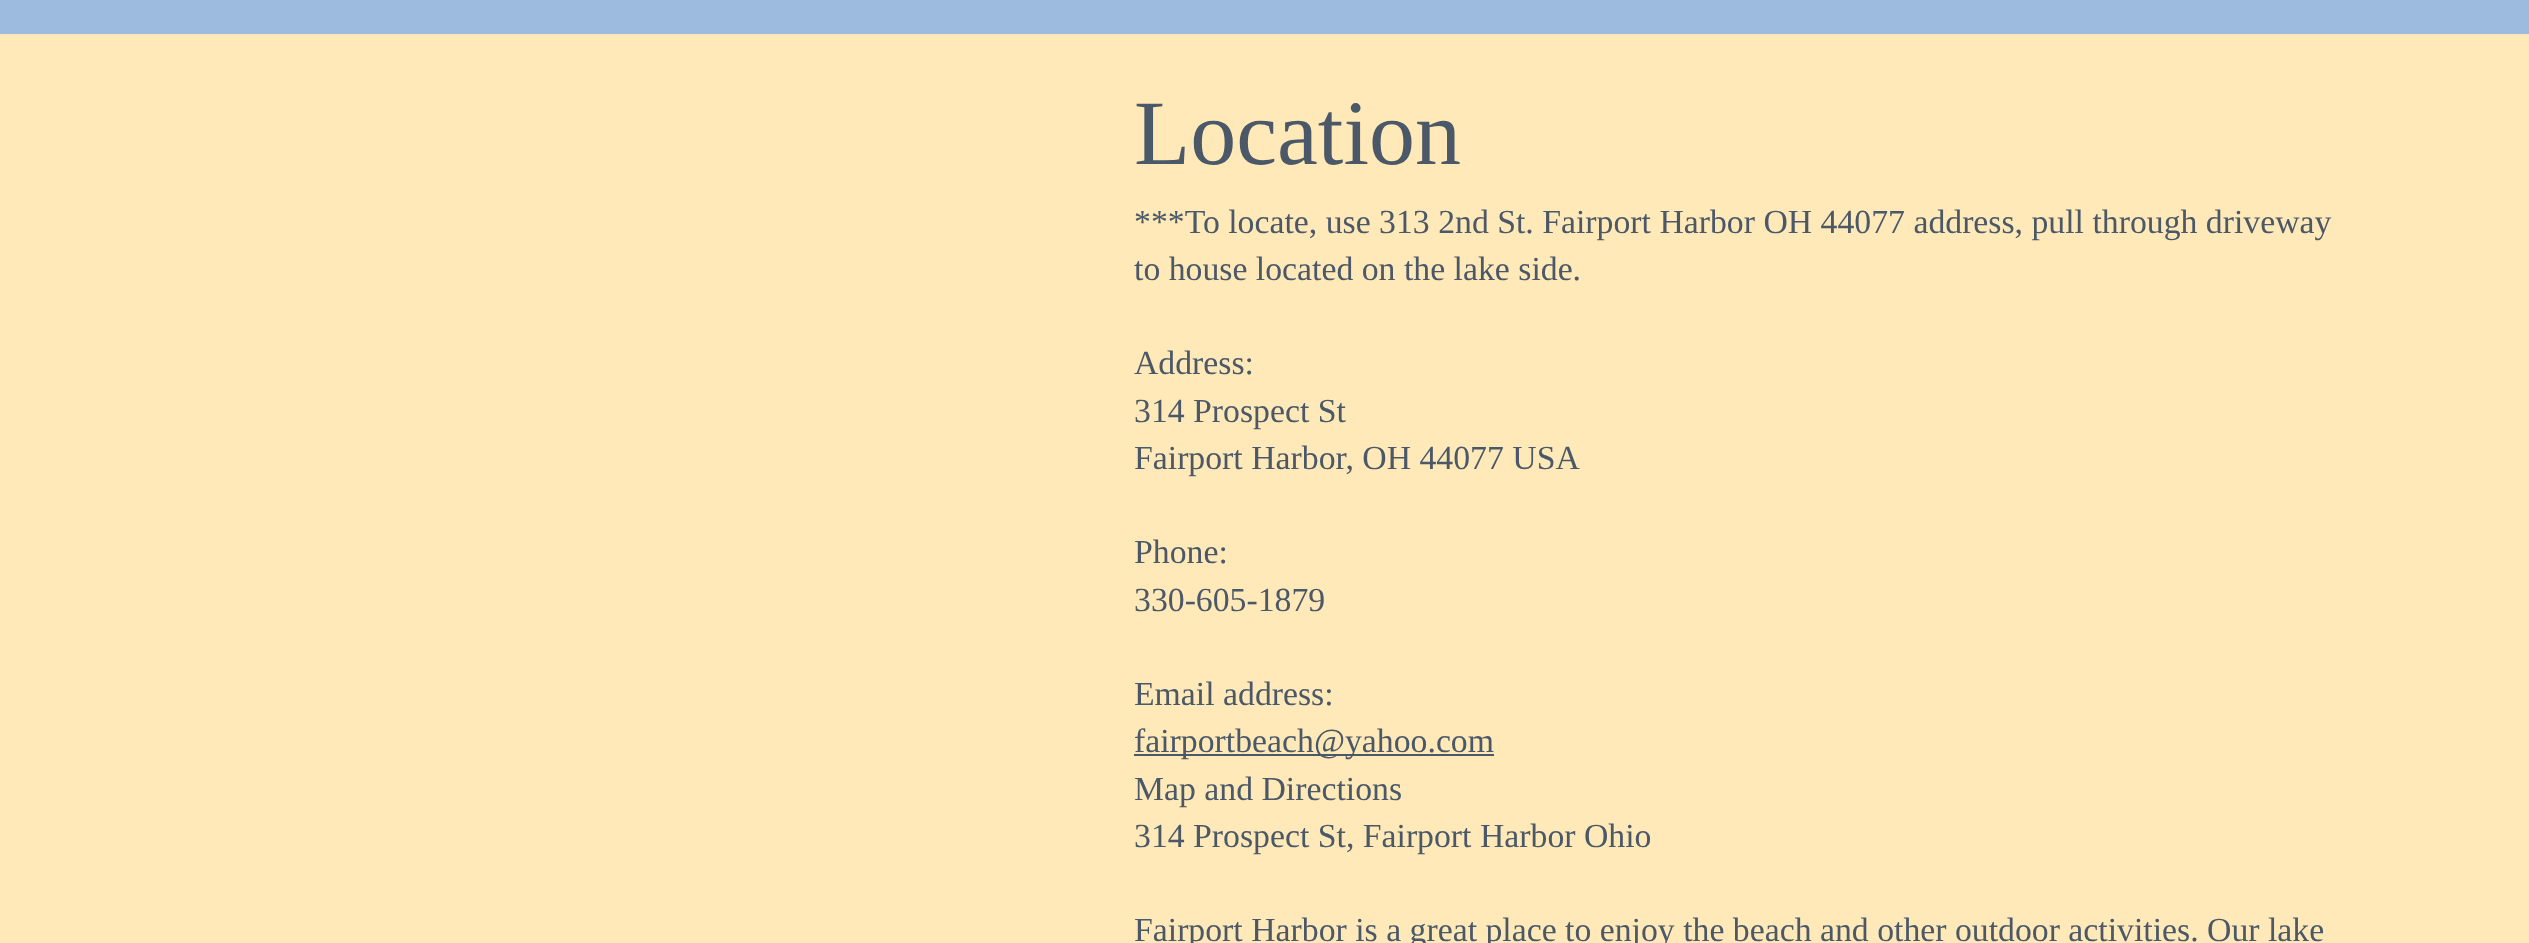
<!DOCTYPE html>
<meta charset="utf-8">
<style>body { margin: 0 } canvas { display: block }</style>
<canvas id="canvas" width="2529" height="943"></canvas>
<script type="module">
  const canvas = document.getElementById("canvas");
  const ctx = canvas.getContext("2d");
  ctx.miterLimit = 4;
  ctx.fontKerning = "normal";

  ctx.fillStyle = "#9dbbdf";
  ctx.fillRect(0, 0, 2529, 943);
  ctx.fillStyle = "#ffe9b8";
  ctx.fillRect(0, 34, 2529, 909);
  ctx.font = "92px Liberation Serif";
  ctx.fillStyle = "#4a5868";
  ctx.fillText("Location", 1134, 164);
  ctx.font = "33.75px Liberation Serif";
  ctx.fillText("***To locate, use 313 2nd St. Fairport Harbor OH 44077 address, pull through driveway", 1134, 233);
  ctx.fillText("to house located on the lake side.", 1134, 280);
  ctx.fillText("Address:", 1134, 374);
  ctx.fillText("314 Prospect St", 1134, 422);
  ctx.fillText("Fairport Harbor, OH 44077 USA", 1134, 469);
  ctx.fillText("Phone:", 1134, 563);
  ctx.fillText("330-605-1879", 1134, 611);
  ctx.fillText("Email address:", 1134, 705);
  ctx.fillRect(1134, 754, 360, 2);
  ctx.fillText("fairportbeach@yahoo.com", 1134, 752);
  ctx.fillText("Map and Directions", 1134, 800);
  ctx.fillText("314 Prospect St, Fairport Harbor Ohio", 1134, 847);
  ctx.fillText("Fairport Harbor is a great place to enjoy the beach and other outdoor activities. Our lake", 1134, 941);
</script>
